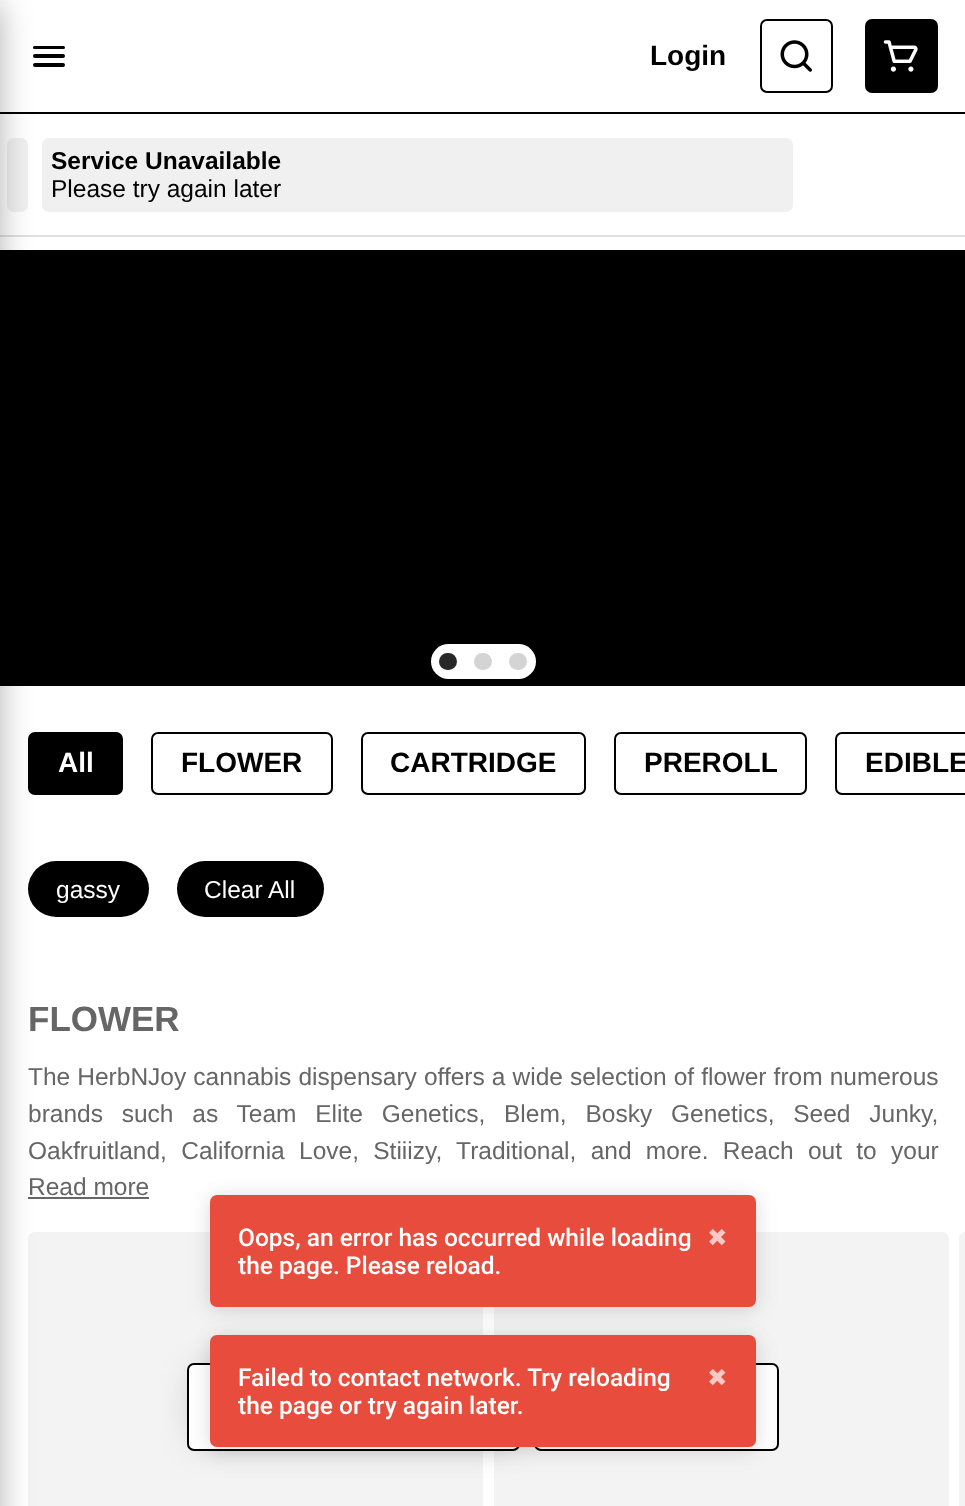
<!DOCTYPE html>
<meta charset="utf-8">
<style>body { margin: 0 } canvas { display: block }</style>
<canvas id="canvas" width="965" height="1506"></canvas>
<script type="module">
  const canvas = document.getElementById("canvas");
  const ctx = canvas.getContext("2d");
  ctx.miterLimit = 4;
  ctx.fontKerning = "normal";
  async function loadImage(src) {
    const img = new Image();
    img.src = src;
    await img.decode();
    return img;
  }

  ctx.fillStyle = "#ffffff";
  ctx.fillRect(0, 0, 965, 1506);
  ctx.fillStyle = "#000000";
  ctx.fillRect(0, 112, 965, 2);
  ctx.beginPath();
  ctx.roundRect(33, 54, 32, 4, 2);
  ctx.fill();
  ctx.beginPath();
  ctx.roundRect(33, 63, 32, 4, 2);
  ctx.fill();
  ctx.beginPath();
  ctx.roundRect(33, 46, 32, 3, 1.5);
  ctx.fill();
  ctx.fillStyle = "#e1e1e1";
  ctx.fillRect(0, 235, 965, 2);
  ctx.fillStyle = "#f0f0f0";
  ctx.beginPath();
  ctx.roundRect(8, 139, 19, 72, 6);
  ctx.fill();
  ctx.strokeStyle = "#f0f0f0";
  ctx.lineWidth = 2;
  ctx.stroke();
  ctx.beginPath();
  ctx.roundRect(42, 138, 751, 74, 7);
  ctx.fill();
  ctx.fillStyle = "#000000";
  ctx.fillRect(0, 250, 965, 436);
  ctx.beginPath();
  ctx.roundRect(29, 733, 93, 61, 6);
  ctx.fill();
  ctx.strokeStyle = "#000000";
  ctx.stroke();
  ctx.beginPath();
  ctx.roundRect(28, 861, 121, 56, 28);
  ctx.fill();
  ctx.fillStyle = "#666666";
  ctx.fillRect(28, 1197, 121, 2);
  ctx.fillStyle = "#f3f3f3";
  ctx.beginPath();
  ctx.roundRect(28, 1232, 455, 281, 7);
  ctx.fill();
  ctx.fillStyle = "rgba(0, 0, 0, 0.3)";
  ctx.filter = "blur(16px)";
  ctx.beginPath();
  ctx.rect(-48, 4, 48, 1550);
  ctx.fill();
  ctx.filter = "none";
  ctx.font = "bold 28px Liberation Sans";
  ctx.fillStyle = "#000000";
  ctx.fillText("Login", 650, 65);
  ctx.beginPath();
  ctx.roundRect(761, 20, 71, 72, 6);
  ctx.stroke();
  ctx.drawImage(await loadImage("img1.png"), 780, 40, 32, 32);
  ctx.beginPath();
  ctx.roundRect(865, 19, 73, 74, 7);
  ctx.fill();
  ctx.drawImage(await loadImage("img2.png"), 883, 40, 35, 32);
  ctx.font = "bold 24.5px Liberation Sans";
  ctx.fillText("Service Unavailable", 51, 169);
  ctx.font = "24.5px Liberation Sans";
  ctx.fillText("Please try again later", 51, 197);
  ctx.fillStyle = "#ffffff";
  ctx.beginPath();
  ctx.roundRect(431, 644, 105, 35, 17.5);
  ctx.fill();
  ctx.fillStyle = "#272727";
  ctx.beginPath();
  ctx.roundRect(439, 653, 18, 17, 8.5);
  ctx.fill();
  ctx.fillStyle = "#d4d4d4";
  ctx.beginPath();
  ctx.roundRect(474, 653, 18, 17, 8.5);
  ctx.fill();
  ctx.beginPath();
  ctx.roundRect(509, 653, 18, 17, 8.5);
  ctx.fill();
  ctx.font = "bold 28px Liberation Sans";
  ctx.fillStyle = "#ffffff";
  ctx.fillText("All", 58, 772);
  ctx.beginPath();
  ctx.roundRect(152, 733, 180, 61, 6);
  ctx.stroke();
  ctx.fillStyle = "#000000";
  ctx.fillText("FLOWER", 181, 772);
  ctx.beginPath();
  ctx.roundRect(362, 733, 223, 61, 6);
  ctx.stroke();
  ctx.fillText("CARTRIDGE", 390, 772);
  ctx.beginPath();
  ctx.roundRect(615, 733, 191, 61, 6);
  ctx.stroke();
  ctx.fillText("PREROLL", 644, 772);
  ctx.beginPath();
  ctx.roundRect(836, 733, 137, 61, 6);
  ctx.stroke();
  ctx.fillText("EDIBLE", 865, 772);
  ctx.font = "24.5px Liberation Sans";
  ctx.fillStyle = "#ffffff";
  ctx.fillText("gassy", 56, 898);
  ctx.fillStyle = "#000000";
  ctx.beginPath();
  ctx.roundRect(177, 861, 147, 56, 28);
  ctx.fill();
  ctx.fillStyle = "#ffffff";
  ctx.fillText("Clear All", 204, 898);
  ctx.font = "bold 35px Liberation Sans";
  ctx.fillStyle = "#666666";
  ctx.fillText("FLOWER", 28, 1031);
  ctx.wordSpacing = "0.25px";
  ctx.font = "24.5px Liberation Sans";
  ctx.fillText("The HerbNJoy cannabis dispensary offers a wide selection of flower from numerous", 28, 1085);
  ctx.wordSpacing = "12px";
  ctx.fillText("brands such as Team Elite Genetics, Blem, Bosky Genetics, Seed Junky,", 28, 1122);
  ctx.wordSpacing = "7.5px";
  ctx.fillText("Oakfruitland, California Love, Stiiizy, Traditional, and more. Reach out to your", 28, 1159);
  ctx.wordSpacing = "0px";
  ctx.fillText("Read more", 28, 1195);
  ctx.fillStyle = "#f3f3f3";
  ctx.beginPath();
  ctx.roundRect(494, 1232, 455, 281, 7);
  ctx.fill();
  ctx.beginPath();
  ctx.moveTo(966, 1232);
  ctx.lineTo(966, 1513);
  ctx.bezierCurveTo(962, 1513, 959, 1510, 959, 1506);
  ctx.lineTo(959, 1239);
  ctx.bezierCurveTo(959, 1235, 962, 1232, 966, 1232);
  ctx.closePath();
  ctx.fill();
  ctx.fillStyle = "#ffffff";
  ctx.beginPath();
  ctx.roundRect(535, 1364, 243, 86, 6);
  ctx.fill();
  ctx.stroke();
  ctx.fillStyle = "rgba(0, 0, 0, 0.2)";
  ctx.filter = "blur(17.5px)";
  ctx.beginPath();
  ctx.rect(196, 1372, 315, 70);
  ctx.fill();
  ctx.filter = "none";
  ctx.fillStyle = "#ffffff";
  ctx.beginPath();
  ctx.roundRect(188, 1364, 331, 86, 6);
  ctx.fill();
  ctx.stroke();
  ctx.fillStyle = "rgba(0, 0, 0, 0.05)";
  ctx.filter = "blur(13px)";
  ctx.beginPath();
  ctx.roundRect(210, 1199, 546, 112, 7);
  ctx.fill();
  ctx.filter = "none";
  ctx.fillStyle = "rgba(0, 0, 0, 0.1)";
  ctx.filter = "blur(9px)";
  ctx.beginPath();
  ctx.roundRect(210, 1197, 546, 112, 7);
  ctx.fill();
  ctx.filter = "none";
  ctx.fillStyle = "#e74c3c";
  ctx.beginPath();
  ctx.roundRect(210, 1195, 546, 112, 7);
  ctx.fill();
  ctx.font = "500 24.5px Roboto";
  ctx.fillStyle = "#ffffff";
  ctx.fillText("Oops, an error has occurred while loading", 238, 1246);
  ctx.fillText("the page. Please reload.", 238, 1274);
  ctx.font = "24.5px DejaVu Sans";
  ctx.fillStyle = "#f8c9c5";
  ctx.fillText("✖︎", 707, 1246);
  ctx.fillStyle = "rgba(0, 0, 0, 0.05)";
  ctx.filter = "blur(13px)";
  ctx.beginPath();
  ctx.roundRect(210, 1339, 546, 112, 7);
  ctx.fill();
  ctx.filter = "none";
  ctx.fillStyle = "rgba(0, 0, 0, 0.1)";
  ctx.filter = "blur(9px)";
  ctx.beginPath();
  ctx.roundRect(210, 1337, 546, 112, 7);
  ctx.fill();
  ctx.filter = "none";
  ctx.fillStyle = "#e74c3c";
  ctx.beginPath();
  ctx.roundRect(210, 1335, 546, 112, 7);
  ctx.fill();
  ctx.font = "500 24.5px Roboto";
  ctx.fillStyle = "#ffffff";
  ctx.fillText("Failed to contact network. Try reloading", 238, 1386);
  ctx.fillText("the page or try again later.", 238, 1414);
  ctx.font = "24.5px DejaVu Sans";
  ctx.fillStyle = "#f8c9c5";
  ctx.fillText("✖︎", 707, 1386);
</script>
